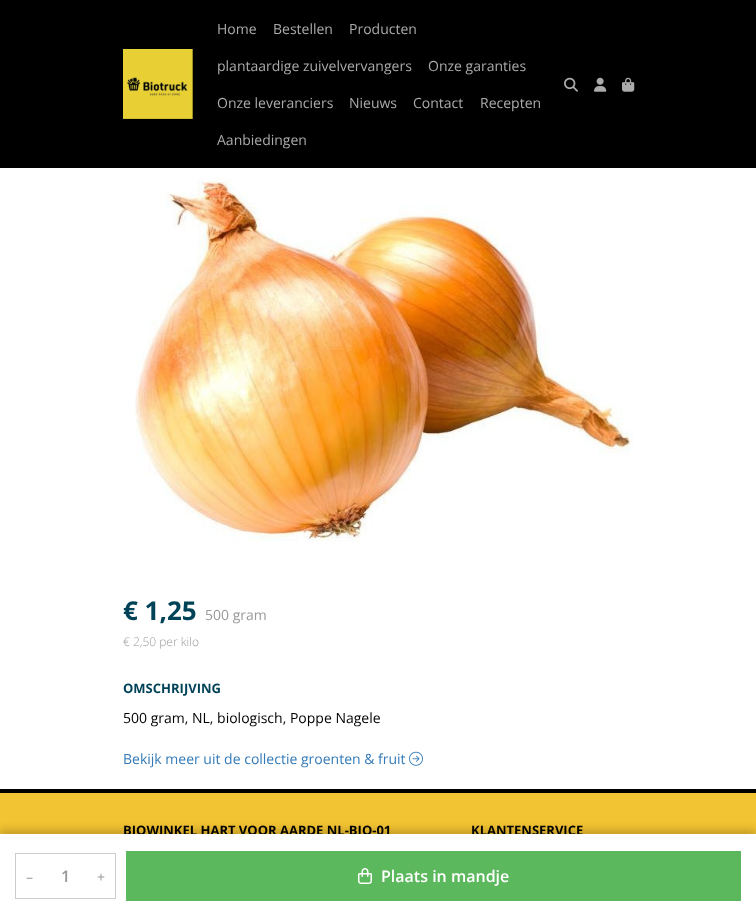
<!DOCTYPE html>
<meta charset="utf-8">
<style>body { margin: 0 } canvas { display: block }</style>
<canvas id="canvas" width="756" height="918"></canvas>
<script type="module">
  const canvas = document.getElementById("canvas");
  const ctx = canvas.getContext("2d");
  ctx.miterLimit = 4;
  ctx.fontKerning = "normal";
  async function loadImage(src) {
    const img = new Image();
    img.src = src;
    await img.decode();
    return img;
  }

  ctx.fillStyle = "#ffffff";
  ctx.fillRect(0, 0, 756, 918);
  ctx.fillStyle = "#000000";
  ctx.fillRect(0, 0, 756, 168);
  ctx.drawImage(await loadImage("img1.png"), 123, 49, 70, 70);
  ctx.font = "14px Open Sans";
  ctx.fillStyle = "#ababab";
  ctx.fillText("Home", 217, 34);
  ctx.fillText("Bestellen", 273, 34);
  ctx.fillText("Producten", 349, 34);
  ctx.fillText("plantaardige zuivelvervangers", 217, 71);
  ctx.fillText("Onze garanties", 428, 71);
  ctx.fillText("Onze leveranciers", 217, 108);
  ctx.fillText("Nieuws", 349, 108);
  ctx.fillText("Contact", 413, 108);
  ctx.fillText("Recepten", 480, 108);
  ctx.fillText("Aanbiedingen", 217, 145);
  ctx.drawImage(await loadImage("img2.png"), 564, 77, 14, 15);
  ctx.drawImage(await loadImage("img3.png"), 594, 77, 13, 15);
  ctx.drawImage(await loadImage("img4.png"), 622, 77, 13, 15);
  ctx.font = "bold 26px Open Sans";
  ctx.fillStyle = "#004358";
  ctx.fillText("€ 1,25", 123, 620);
  ctx.font = "14px Open Sans";
  ctx.fillStyle = "#999999";
  ctx.fillText("500 gram", 205, 620);
  ctx.font = "300 12px Open Sans";
  ctx.fillText("€ 2,50 per kilo", 123, 646);
  ctx.fillStyle = "#f2c332";
  ctx.fillRect(0, 793, 756, 41);
  ctx.fillStyle = "rgba(0, 0, 0, 0.2)";
  ctx.filter = "blur(4px)";
  ctx.beginPath();
  ctx.rect(0, 830, 756, 84);
  ctx.fill();
  ctx.filter = "none";
  ctx.font = "bold 13px Open Sans";
  ctx.fillStyle = "#000000";
  ctx.fillText("BIOWINKEL HART VOOR AARDE NL-BIO-01", 123, 835);
  ctx.fillText("KLANTENSERVICE", 471, 835);
  ctx.fillStyle = "#ffffff";
  ctx.fillRect(0, 834, 756, 84);
  ctx.strokeStyle = "#cccccc";
  ctx.strokeRect(15.5, 853.5, 100, 45);
  ctx.font = "14px Open Sans";
  ctx.fillStyle = "#999999";
  ctx.fillText("–", 26, 882);
  ctx.font = "600 16px Open Sans";
  ctx.fillText("1", 61, 882);
  ctx.font = "14px Open Sans";
  ctx.fillText("+", 97, 882);
  ctx.fillStyle = "#5cb85c";
  ctx.fillRect(126, 851, 615, 50);
  ctx.drawImage(await loadImage("img5.png"), 358, 868, 14, 16);
  ctx.font = "600 16px Open Sans";
  ctx.fillStyle = "#ffffff";
  ctx.fillText("Plaats in mandje", 381, 882);
  ctx.font = "14px Open Sans";
  ctx.fillStyle = "#337ab7";
  ctx.fillText("Bekijk meer uit de collectie groenten & fruit", 123, 764);
  ctx.drawImage(await loadImage("img6.png"), 409, 751, 14, 15);
  ctx.drawImage(await loadImage("img7.png"), 135, 178, 498, 363);
  ctx.font = "bold 13px Open Sans";
  ctx.fillStyle = "#004358";
  ctx.fillText("OMSCHRIJVING", 123, 693);
  ctx.font = "14px Open Sans";
  ctx.fillStyle = "#000000";
  ctx.fillText("500 gram, NL, biologisch, Poppe Nagele", 123, 723);
  ctx.fillRect(0, 789, 756, 4);
</script>
